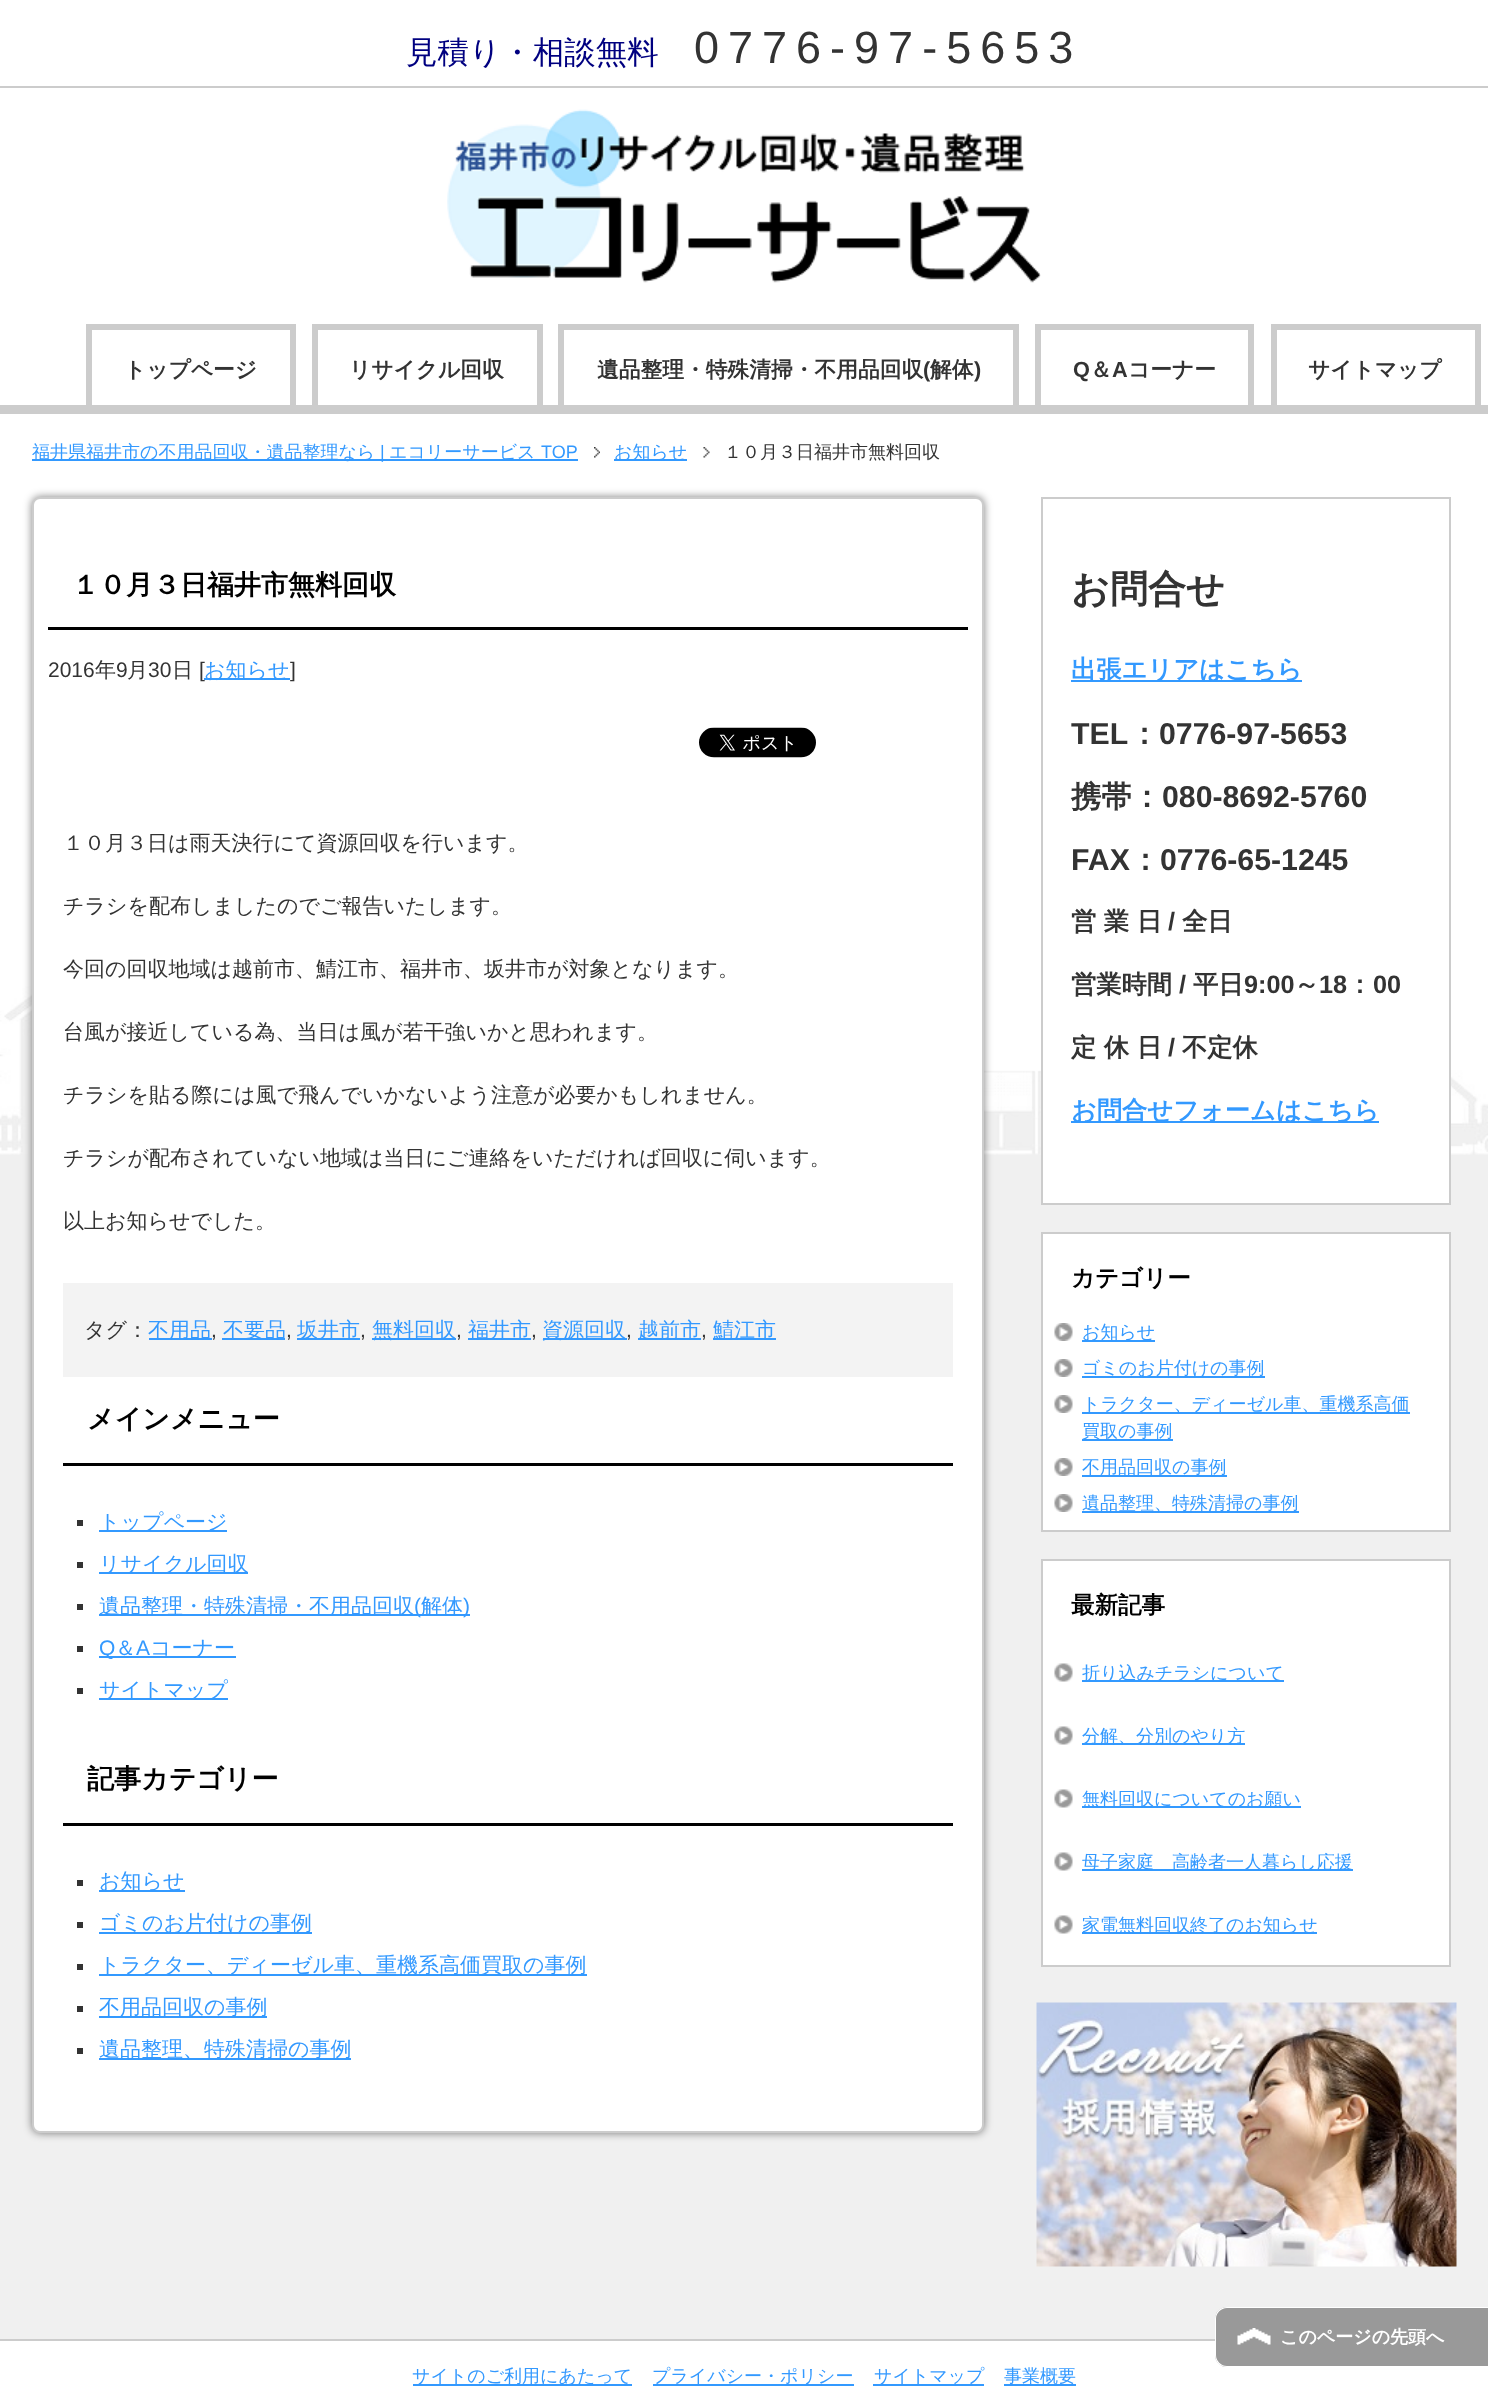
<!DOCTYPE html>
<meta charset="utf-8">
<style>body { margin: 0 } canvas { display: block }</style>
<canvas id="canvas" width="1488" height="2397"></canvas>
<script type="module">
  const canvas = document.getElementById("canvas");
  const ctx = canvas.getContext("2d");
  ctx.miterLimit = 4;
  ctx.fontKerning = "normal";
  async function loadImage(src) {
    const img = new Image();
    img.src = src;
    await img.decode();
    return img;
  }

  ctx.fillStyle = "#f0f0f0";
  ctx.fillRect(0, 0, 1488, 2397);
  ctx.drawImage(await loadImage("img1.png"), 0, 414, 1488, 741);
  ctx.fillStyle = "#ffffff";
  ctx.fillRect(0, 0, 1488, 405);
  ctx.drawImage(await loadImage("img2.png"), 447, 109, 594, 174);
  ctx.fillStyle = "#cccccc";
  ctx.fillRect(0, 86, 1488, 2);
  ctx.font = "500 31.5px WenQuanYi Zen Hei";
  ctx.fillStyle = "#000080";
  ctx.fillText("見積り・相談無料", 406, 63);
  ctx.letterSpacing = "9px";
  ctx.font = "45px Liberation Sans";
  ctx.fillStyle = "#333333";
  ctx.fillText("0776-97-5653", 694, 63);
  ctx.fillStyle = "#cccccc";
  ctx.fillRect(86, 324, 210, 6);
  ctx.fillRect(290, 324, 6, 81);
  ctx.fillRect(86, 324, 6, 81);
  ctx.letterSpacing = "0px";
  ctx.font = "bold 21.75px WenQuanYi Zen Hei";
  ctx.fillStyle = "#333333";
  ctx.fillText("トップページ", 124, 377);
  ctx.fillStyle = "#cccccc";
  ctx.fillRect(312, 324, 231, 6);
  ctx.fillRect(537, 324, 6, 81);
  ctx.fillRect(312, 324, 6, 81);
  ctx.fillStyle = "#333333";
  ctx.fillText("リサイクル回収", 349, 377);
  ctx.fillStyle = "#cccccc";
  ctx.fillRect(558, 324, 461, 6);
  ctx.fillRect(1013, 324, 6, 81);
  ctx.fillRect(558, 324, 6, 81);
  ctx.fillStyle = "#333333";
  ctx.fillText("遺品整理・特殊清掃・不用品回収", 597, 377);
  ctx.font = "bold 21.75px Liberation Sans";
  ctx.fillText("(", 923, 377);
  ctx.font = "bold 21.75px WenQuanYi Zen Hei";
  ctx.fillText("解体", 930, 377);
  ctx.font = "bold 21.75px Liberation Sans";
  ctx.fillText(")", 974, 377);
  ctx.fillStyle = "#cccccc";
  ctx.fillRect(1035, 324, 219, 6);
  ctx.fillRect(1248, 324, 6, 81);
  ctx.fillRect(1035, 324, 6, 81);
  ctx.fillStyle = "#333333";
  ctx.fillText("Q", 1073, 377);
  ctx.font = "bold 21.75px WenQuanYi Zen Hei";
  ctx.fillText("＆", 1090, 377);
  ctx.font = "bold 21.75px Liberation Sans";
  ctx.fillText("A", 1112, 377);
  ctx.font = "bold 21.75px WenQuanYi Zen Hei";
  ctx.fillText("コーナー", 1128, 377);
  ctx.fillStyle = "#cccccc";
  ctx.fillRect(1271, 324, 210, 6);
  ctx.fillRect(1475, 324, 6, 81);
  ctx.fillRect(1271, 324, 6, 81);
  ctx.fillStyle = "#333333";
  ctx.fillText("サイトマップ", 1308, 377);
  ctx.fillStyle = "#cccccc";
  ctx.fillRect(0, 405, 1488, 9);
  ctx.fillStyle = "#3399ff";
  ctx.fillRect(32, 459, 546, 2);
  ctx.font = "500 18px WenQuanYi Zen Hei";
  ctx.fillText("福井県福井市の不用品回収・遺品整理なら", 32, 458);
  ctx.font = "18px Liberation Sans";
  ctx.fillText("|", 380, 458);
  ctx.font = "500 18px WenQuanYi Zen Hei";
  ctx.fillText("エコリーサービス", 389, 458);
  ctx.font = "18px Liberation Sans";
  ctx.fillText("TOP", 541, 458);
  ctx.drawImage(await loadImage("img3.png"), 594, 447, 6, 11);
  ctx.fillRect(614, 459, 73, 2);
  ctx.font = "500 18px WenQuanYi Zen Hei";
  ctx.fillText("お知らせ", 614, 458);
  ctx.drawImage(await loadImage("img4.png"), 703, 447, 7, 11);
  ctx.fillStyle = "#333333";
  ctx.fillText("１０月３日福井市無料回収", 724, 458);
  ctx.fillStyle = "rgba(0, 0, 0, 0.5)";
  ctx.filter = "blur(4px)";
  ctx.beginPath();
  ctx.roundRect(32, 497, 952, 1636, 8);
  ctx.fill();
  ctx.filter = "none";
  ctx.fillStyle = "#ffffff";
  ctx.beginPath();
  ctx.roundRect(33, 498, 950, 1634, 7);
  ctx.fill();
  ctx.strokeStyle = "#cccccc";
  ctx.lineWidth = 2;
  ctx.stroke();
  ctx.fillStyle = "#000000";
  ctx.fillRect(48, 627, 920, 3);
  ctx.font = "bold 27px WenQuanYi Zen Hei";
  ctx.fillText("１０月３日福井市無料回収", 72, 594);
  ctx.font = "21px Liberation Sans";
  ctx.fillStyle = "#333333";
  ctx.fillText("2016", 48, 677);
  ctx.font = "500 21px WenQuanYi Zen Hei";
  ctx.fillText("年", 95, 677);
  ctx.font = "21px Liberation Sans";
  ctx.fillText("9", 116, 677);
  ctx.font = "500 21px WenQuanYi Zen Hei";
  ctx.fillText("月", 127, 677);
  ctx.font = "21px Liberation Sans";
  ctx.fillText("30", 148, 677);
  ctx.font = "500 21px WenQuanYi Zen Hei";
  ctx.fillText("日", 172, 677);
  ctx.font = "21px Liberation Sans";
  ctx.fillText("[", 199, 677);
  ctx.fillStyle = "#3399ff";
  ctx.fillRect(204, 678, 86, 2);
  ctx.font = "500 21px WenQuanYi Zen Hei";
  ctx.fillText("お知らせ", 204, 677);
  ctx.font = "21px Liberation Sans";
  ctx.fillStyle = "#333333";
  ctx.fillText("]", 290, 677);
  ctx.drawImage(await loadImage("img5.png"), 699, 727, 117, 31);
  ctx.font = "500 21px WenQuanYi Zen Hei";
  ctx.fillText("１０月３日は雨天決行にて資源回収を行います。", 63, 850);
  ctx.fillText("チラシを配布しましたのでご報告いたします。", 63, 913);
  ctx.fillText("今回の回収地域は越前市、鯖江市、福井市、坂井市が対象となります。", 63, 976);
  ctx.fillText("台風が接近している為、当日は風が若干強いかと思われます。", 63, 1039);
  ctx.fillText("チラシを貼る際には風で飛んでいかないよう注意が必要かもしれません。", 63, 1102);
  ctx.fillText("チラシが配布されていない地域は当日にご連絡をいただければ回収に伺います。", 63, 1165);
  ctx.fillText("以上お知らせでした。", 63, 1228);
  ctx.fillStyle = "#f3f3f3";
  ctx.fillRect(63, 1283, 890, 94);
  ctx.fillStyle = "#333333";
  ctx.fillText("タグ：", 84, 1337);
  ctx.fillStyle = "#3399ff";
  ctx.fillRect(149, 1338, 63, 2);
  ctx.fillText("不用品", 148, 1337);
  ctx.font = "21px Liberation Sans";
  ctx.fillStyle = "#333333";
  ctx.fillText(",", 211, 1337);
  ctx.fillStyle = "#3399ff";
  ctx.fillRect(222, 1338, 63, 2);
  ctx.font = "500 21px WenQuanYi Zen Hei";
  ctx.fillText("不要品", 223, 1337);
  ctx.font = "21px Liberation Sans";
  ctx.fillStyle = "#333333";
  ctx.fillText(",", 286, 1337);
  ctx.fillStyle = "#3399ff";
  ctx.fillRect(297, 1338, 63, 2);
  ctx.font = "500 21px WenQuanYi Zen Hei";
  ctx.fillText("坂井市", 297, 1337);
  ctx.font = "21px Liberation Sans";
  ctx.fillStyle = "#333333";
  ctx.fillText(",", 360, 1337);
  ctx.fillStyle = "#3399ff";
  ctx.fillRect(372, 1338, 84, 2);
  ctx.font = "500 21px WenQuanYi Zen Hei";
  ctx.fillText("無料回収", 372, 1337);
  ctx.font = "21px Liberation Sans";
  ctx.fillStyle = "#333333";
  ctx.fillText(",", 456, 1337);
  ctx.fillStyle = "#3399ff";
  ctx.fillRect(468, 1338, 63, 2);
  ctx.font = "500 21px WenQuanYi Zen Hei";
  ctx.fillText("福井市", 468, 1337);
  ctx.font = "21px Liberation Sans";
  ctx.fillStyle = "#333333";
  ctx.fillText(",", 531, 1337);
  ctx.fillStyle = "#3399ff";
  ctx.fillRect(543, 1338, 84, 2);
  ctx.font = "500 21px WenQuanYi Zen Hei";
  ctx.fillText("資源回収", 542, 1337);
  ctx.font = "21px Liberation Sans";
  ctx.fillStyle = "#333333";
  ctx.fillText(",", 626, 1337);
  ctx.fillStyle = "#3399ff";
  ctx.fillRect(638, 1338, 63, 2);
  ctx.font = "500 21px WenQuanYi Zen Hei";
  ctx.fillText("越前市", 638, 1337);
  ctx.font = "21px Liberation Sans";
  ctx.fillStyle = "#333333";
  ctx.fillText(",", 701, 1337);
  ctx.fillStyle = "#3399ff";
  ctx.fillRect(713, 1338, 63, 2);
  ctx.font = "500 21px WenQuanYi Zen Hei";
  ctx.fillText("鯖江市", 713, 1337);
  ctx.fillStyle = "#000000";
  ctx.fillRect(63, 1463, 890, 3);
  ctx.font = "bold 27px WenQuanYi Zen Hei";
  ctx.fillText("メインメニュー", 87, 1428);
  ctx.fillStyle = "#333333";
  ctx.fillRect(77, 1520, 6, 6);
  ctx.fillStyle = "#3399ff";
  ctx.fillRect(99, 1530, 128, 2);
  ctx.font = "500 21px WenQuanYi Zen Hei";
  ctx.fillText("トップページ", 99, 1529);
  ctx.fillStyle = "#333333";
  ctx.fillRect(77, 1562, 6, 6);
  ctx.fillStyle = "#3399ff";
  ctx.fillRect(99, 1572, 149, 2);
  ctx.fillText("リサイクル回収", 99, 1571);
  ctx.fillStyle = "#333333";
  ctx.fillRect(77, 1604, 6, 6);
  ctx.fillStyle = "#3399ff";
  ctx.fillRect(99, 1614, 371, 2);
  ctx.fillText("遺品整理・特殊清掃・不用品回収", 99, 1613);
  ctx.font = "21px Liberation Sans";
  ctx.fillText("(", 414, 1613);
  ctx.font = "500 21px WenQuanYi Zen Hei";
  ctx.fillText("解体", 421, 1613);
  ctx.font = "21px Liberation Sans";
  ctx.fillText(")", 463, 1613);
  ctx.fillStyle = "#333333";
  ctx.fillRect(77, 1646, 6, 6);
  ctx.fillStyle = "#3399ff";
  ctx.fillRect(99, 1656, 137, 2);
  ctx.fillText("Q", 99, 1655);
  ctx.font = "500 21px WenQuanYi Zen Hei";
  ctx.fillText("＆", 115, 1655);
  ctx.font = "21px Liberation Sans";
  ctx.fillText("A", 136, 1655);
  ctx.font = "500 21px WenQuanYi Zen Hei";
  ctx.fillText("コーナー", 150, 1655);
  ctx.fillStyle = "#333333";
  ctx.fillRect(77, 1688, 6, 6);
  ctx.fillStyle = "#3399ff";
  ctx.fillRect(99, 1698, 129, 2);
  ctx.fillText("サイトマップ", 99, 1697);
  ctx.fillStyle = "#000000";
  ctx.fillRect(63, 1823, 890, 3);
  ctx.font = "bold 27px WenQuanYi Zen Hei";
  ctx.fillText("記事カテゴリー", 87, 1788);
  ctx.fillStyle = "#333333";
  ctx.fillRect(77, 1880, 6, 6);
  ctx.fillStyle = "#3399ff";
  ctx.fillRect(99, 1890, 86, 2);
  ctx.font = "500 21px WenQuanYi Zen Hei";
  ctx.fillText("お知らせ", 99, 1888);
  ctx.fillStyle = "#333333";
  ctx.fillRect(77, 1922, 6, 6);
  ctx.fillStyle = "#3399ff";
  ctx.fillRect(99, 1932, 213, 2);
  ctx.fillText("ゴミのお片付けの事例", 99, 1930);
  ctx.fillStyle = "#333333";
  ctx.fillRect(77, 1964, 6, 6);
  ctx.fillStyle = "#3399ff";
  ctx.fillRect(99, 1974, 488, 2);
  ctx.fillText("トラクター、ディーゼル車、重機系高価買取の事例", 99, 1972);
  ctx.fillStyle = "#333333";
  ctx.fillRect(77, 2006, 6, 6);
  ctx.fillStyle = "#3399ff";
  ctx.fillRect(99, 2016, 168, 2);
  ctx.fillText("不用品回収の事例", 99, 2014);
  ctx.fillStyle = "#333333";
  ctx.fillRect(77, 2048, 6, 6);
  ctx.fillStyle = "#3399ff";
  ctx.fillRect(99, 2058, 252, 2);
  ctx.fillText("遺品整理、特殊清掃の事例", 99, 2056);
  ctx.fillStyle = "#ffffff";
  ctx.fillRect(1043, 928, 406, 275);
  ctx.strokeRect(1042, 498, 408, 706);
  ctx.font = "bold 38px WenQuanYi Zen Hei";
  ctx.fillStyle = "#333333";
  ctx.fillText("お問合せ", 1071, 602);
  ctx.fillStyle = "#3399ff";
  ctx.fillRect(1071, 680, 231, 2);
  ctx.font = "bold 25.25px WenQuanYi Zen Hei";
  ctx.fillText("出張エリアはこちら", 1071, 678);
  ctx.font = "bold 30.25px Liberation Sans";
  ctx.fillStyle = "#333333";
  ctx.fillText("TEL", 1071, 744);
  ctx.font = "bold 30.25px WenQuanYi Zen Hei";
  ctx.fillText("：", 1129, 744);
  ctx.font = "bold 30.25px Liberation Sans";
  ctx.fillText("0776-97-5653", 1159, 744);
  ctx.font = "bold 30.25px WenQuanYi Zen Hei";
  ctx.fillText("携帯：", 1071, 807);
  ctx.font = "bold 30.25px Liberation Sans";
  ctx.fillText("080-8692-5760", 1162, 807);
  ctx.fillText("FAX", 1071, 870);
  ctx.font = "bold 30.25px WenQuanYi Zen Hei";
  ctx.fillText("：", 1130, 870);
  ctx.font = "bold 30.25px Liberation Sans";
  ctx.fillText("0776-65-1245", 1160, 870);
  ctx.font = "bold 25.25px WenQuanYi Zen Hei";
  ctx.fillText("営 業 日", 1071, 930);
  ctx.font = "bold 25.25px Liberation Sans";
  ctx.fillText("/", 1168, 930);
  ctx.font = "bold 25.25px WenQuanYi Zen Hei";
  ctx.fillText("全日", 1182, 930);
  ctx.fillText("営業時間", 1071, 993);
  ctx.font = "bold 25.25px Liberation Sans";
  ctx.fillText("/", 1179, 993);
  ctx.font = "bold 25.25px WenQuanYi Zen Hei";
  ctx.fillText("平日", 1193, 993);
  ctx.font = "bold 25.25px Liberation Sans";
  ctx.fillText("9:00", 1244, 993);
  ctx.font = "bold 25.25px WenQuanYi Zen Hei";
  ctx.fillText("～", 1294, 993);
  ctx.font = "bold 25.25px Liberation Sans";
  ctx.fillText("18", 1319, 993);
  ctx.font = "bold 25.25px WenQuanYi Zen Hei";
  ctx.fillText("：", 1347, 993);
  ctx.font = "bold 25.25px Liberation Sans";
  ctx.fillText("00", 1373, 993);
  ctx.font = "bold 25.25px WenQuanYi Zen Hei";
  ctx.fillText("定 休 日", 1071, 1056);
  ctx.font = "bold 25.25px Liberation Sans";
  ctx.fillText("/", 1168, 1056);
  ctx.font = "bold 25.25px WenQuanYi Zen Hei";
  ctx.fillText("不定休", 1182, 1056);
  ctx.fillStyle = "#3399ff";
  ctx.fillRect(1071, 1121, 308, 2);
  ctx.fillText("お問合せフォームはこちら", 1071, 1119);
  ctx.fillStyle = "#ffffff";
  ctx.beginPath();
  ctx.rect(1042, 1233, 408, 298);
  ctx.fill();
  ctx.stroke();
  ctx.font = "bold 23.5px WenQuanYi Zen Hei";
  ctx.fillStyle = "#000000";
  ctx.fillText("カテゴリー", 1071, 1286);
  ctx.drawImage(await loadImage("img6.png"), 1054, 1323, 19, 18);
  ctx.fillStyle = "#3399ff";
  ctx.fillRect(1082, 1340, 73, 2);
  ctx.font = "500 18px WenQuanYi Zen Hei";
  ctx.fillText("お知らせ", 1082, 1338);
  ctx.drawImage(await loadImage("img6.png"), 1054, 1359, 19, 18);
  ctx.fillRect(1082, 1376, 183, 2);
  ctx.fillText("ゴミのお片付けの事例", 1082, 1374);
  ctx.drawImage(await loadImage("img6.png"), 1054, 1395, 19, 18);
  ctx.fillRect(1082, 1412, 328, 2);
  ctx.fillText("トラクター、ディーゼル車、重機系高価", 1082, 1410);
  ctx.fillRect(1082, 1439, 91, 2);
  ctx.fillText("買取の事例", 1082, 1437);
  ctx.drawImage(await loadImage("img6.png"), 1054, 1458, 19, 18);
  ctx.fillRect(1082, 1475, 145, 2);
  ctx.fillText("不用品回収の事例", 1082, 1473);
  ctx.drawImage(await loadImage("img6.png"), 1054, 1494, 19, 18);
  ctx.fillRect(1082, 1511, 217, 2);
  ctx.fillText("遺品整理、特殊清掃の事例", 1082, 1509);
  ctx.fillStyle = "#ffffff";
  ctx.beginPath();
  ctx.rect(1042, 1560, 408, 406);
  ctx.fill();
  ctx.stroke();
  ctx.font = "bold 23.5px WenQuanYi Zen Hei";
  ctx.fillStyle = "#000000";
  ctx.fillText("最新記事", 1071, 1613);
  ctx.drawImage(await loadImage("img7.png"), 1054, 1663, 19, 19);
  ctx.fillStyle = "#3399ff";
  ctx.fillRect(1082, 1680, 202, 2);
  ctx.font = "500 18px WenQuanYi Zen Hei";
  ctx.fillText("折り込みチラシについて", 1082, 1679);
  ctx.drawImage(await loadImage("img7.png"), 1054, 1726, 19, 19);
  ctx.fillRect(1082, 1743, 163, 2);
  ctx.fillText("分解、分別のやり方", 1082, 1742);
  ctx.drawImage(await loadImage("img7.png"), 1054, 1789, 19, 19);
  ctx.fillRect(1082, 1806, 219, 2);
  ctx.fillText("無料回収についてのお願い", 1082, 1805);
  ctx.drawImage(await loadImage("img7.png"), 1054, 1852, 19, 19);
  ctx.fillRect(1082, 1869, 271, 2);
  ctx.fillText("母子家庭　高齢者一人暮らし応援", 1082, 1868);
  ctx.drawImage(await loadImage("img7.png"), 1054, 1915, 19, 19);
  ctx.fillRect(1082, 1932, 235, 2);
  ctx.fillText("家電無料回収終了のお知らせ", 1082, 1931);
  ctx.drawImage(await loadImage("img8.png"), 1036, 2002, 421, 265);
  ctx.fillStyle = "#ffffff";
  ctx.fillRect(0, 2341, 1488, 56);
  ctx.fillStyle = "#cccccc";
  ctx.fillRect(0, 2339, 1215, 2);
  ctx.fillStyle = "#3399ff";
  ctx.fillRect(413, 2384, 219, 2);
  ctx.fillText("サイトのご利用にあたって", 412, 2382);
  ctx.fillRect(653, 2384, 201, 2);
  ctx.fillText("プライバシー・ポリシー", 652, 2382);
  ctx.fillRect(873, 2384, 111, 2);
  ctx.fillText("サイトマップ", 874, 2382);
  ctx.fillRect(1004, 2384, 72, 2);
  ctx.fillText("事業概要", 1004, 2382);
  ctx.fillStyle = "#999999";
  ctx.beginPath();
  ctx.roundRect(1215, 2307, 273, 60, [12, 0, 0, 12]);
  ctx.fill();
  ctx.drawImage(await loadImage("img9.png"), 1237, 2328, 34, 17);
  ctx.fillStyle = "#ffffff";
  ctx.beginPath();
  ctx.moveTo(1227, 2307);
  ctx.lineTo(1488, 2307);
  ctx.lineTo(1488, 2367);
  ctx.lineTo(1227, 2367);
  ctx.bezierCurveTo(1220, 2367, 1215, 2362, 1215, 2355);
  ctx.lineTo(1215, 2319);
  ctx.bezierCurveTo(1215, 2312, 1220, 2307, 1227, 2307);
  ctx.closePath();
  ctx.moveTo(1227, 2308);
  ctx.lineTo(1488, 2308);
  ctx.lineTo(1488, 2366);
  ctx.lineTo(1227, 2366);
  ctx.bezierCurveTo(1221, 2366, 1216, 2361, 1216, 2355);
  ctx.lineTo(1216, 2319);
  ctx.bezierCurveTo(1216, 2313, 1221, 2308, 1227, 2308);
  ctx.closePath();
  ctx.fill("evenodd");
  ctx.font = "bold 18px WenQuanYi Zen Hei";
  ctx.fillText("このページの先頭へ", 1280, 2343);
</script>
